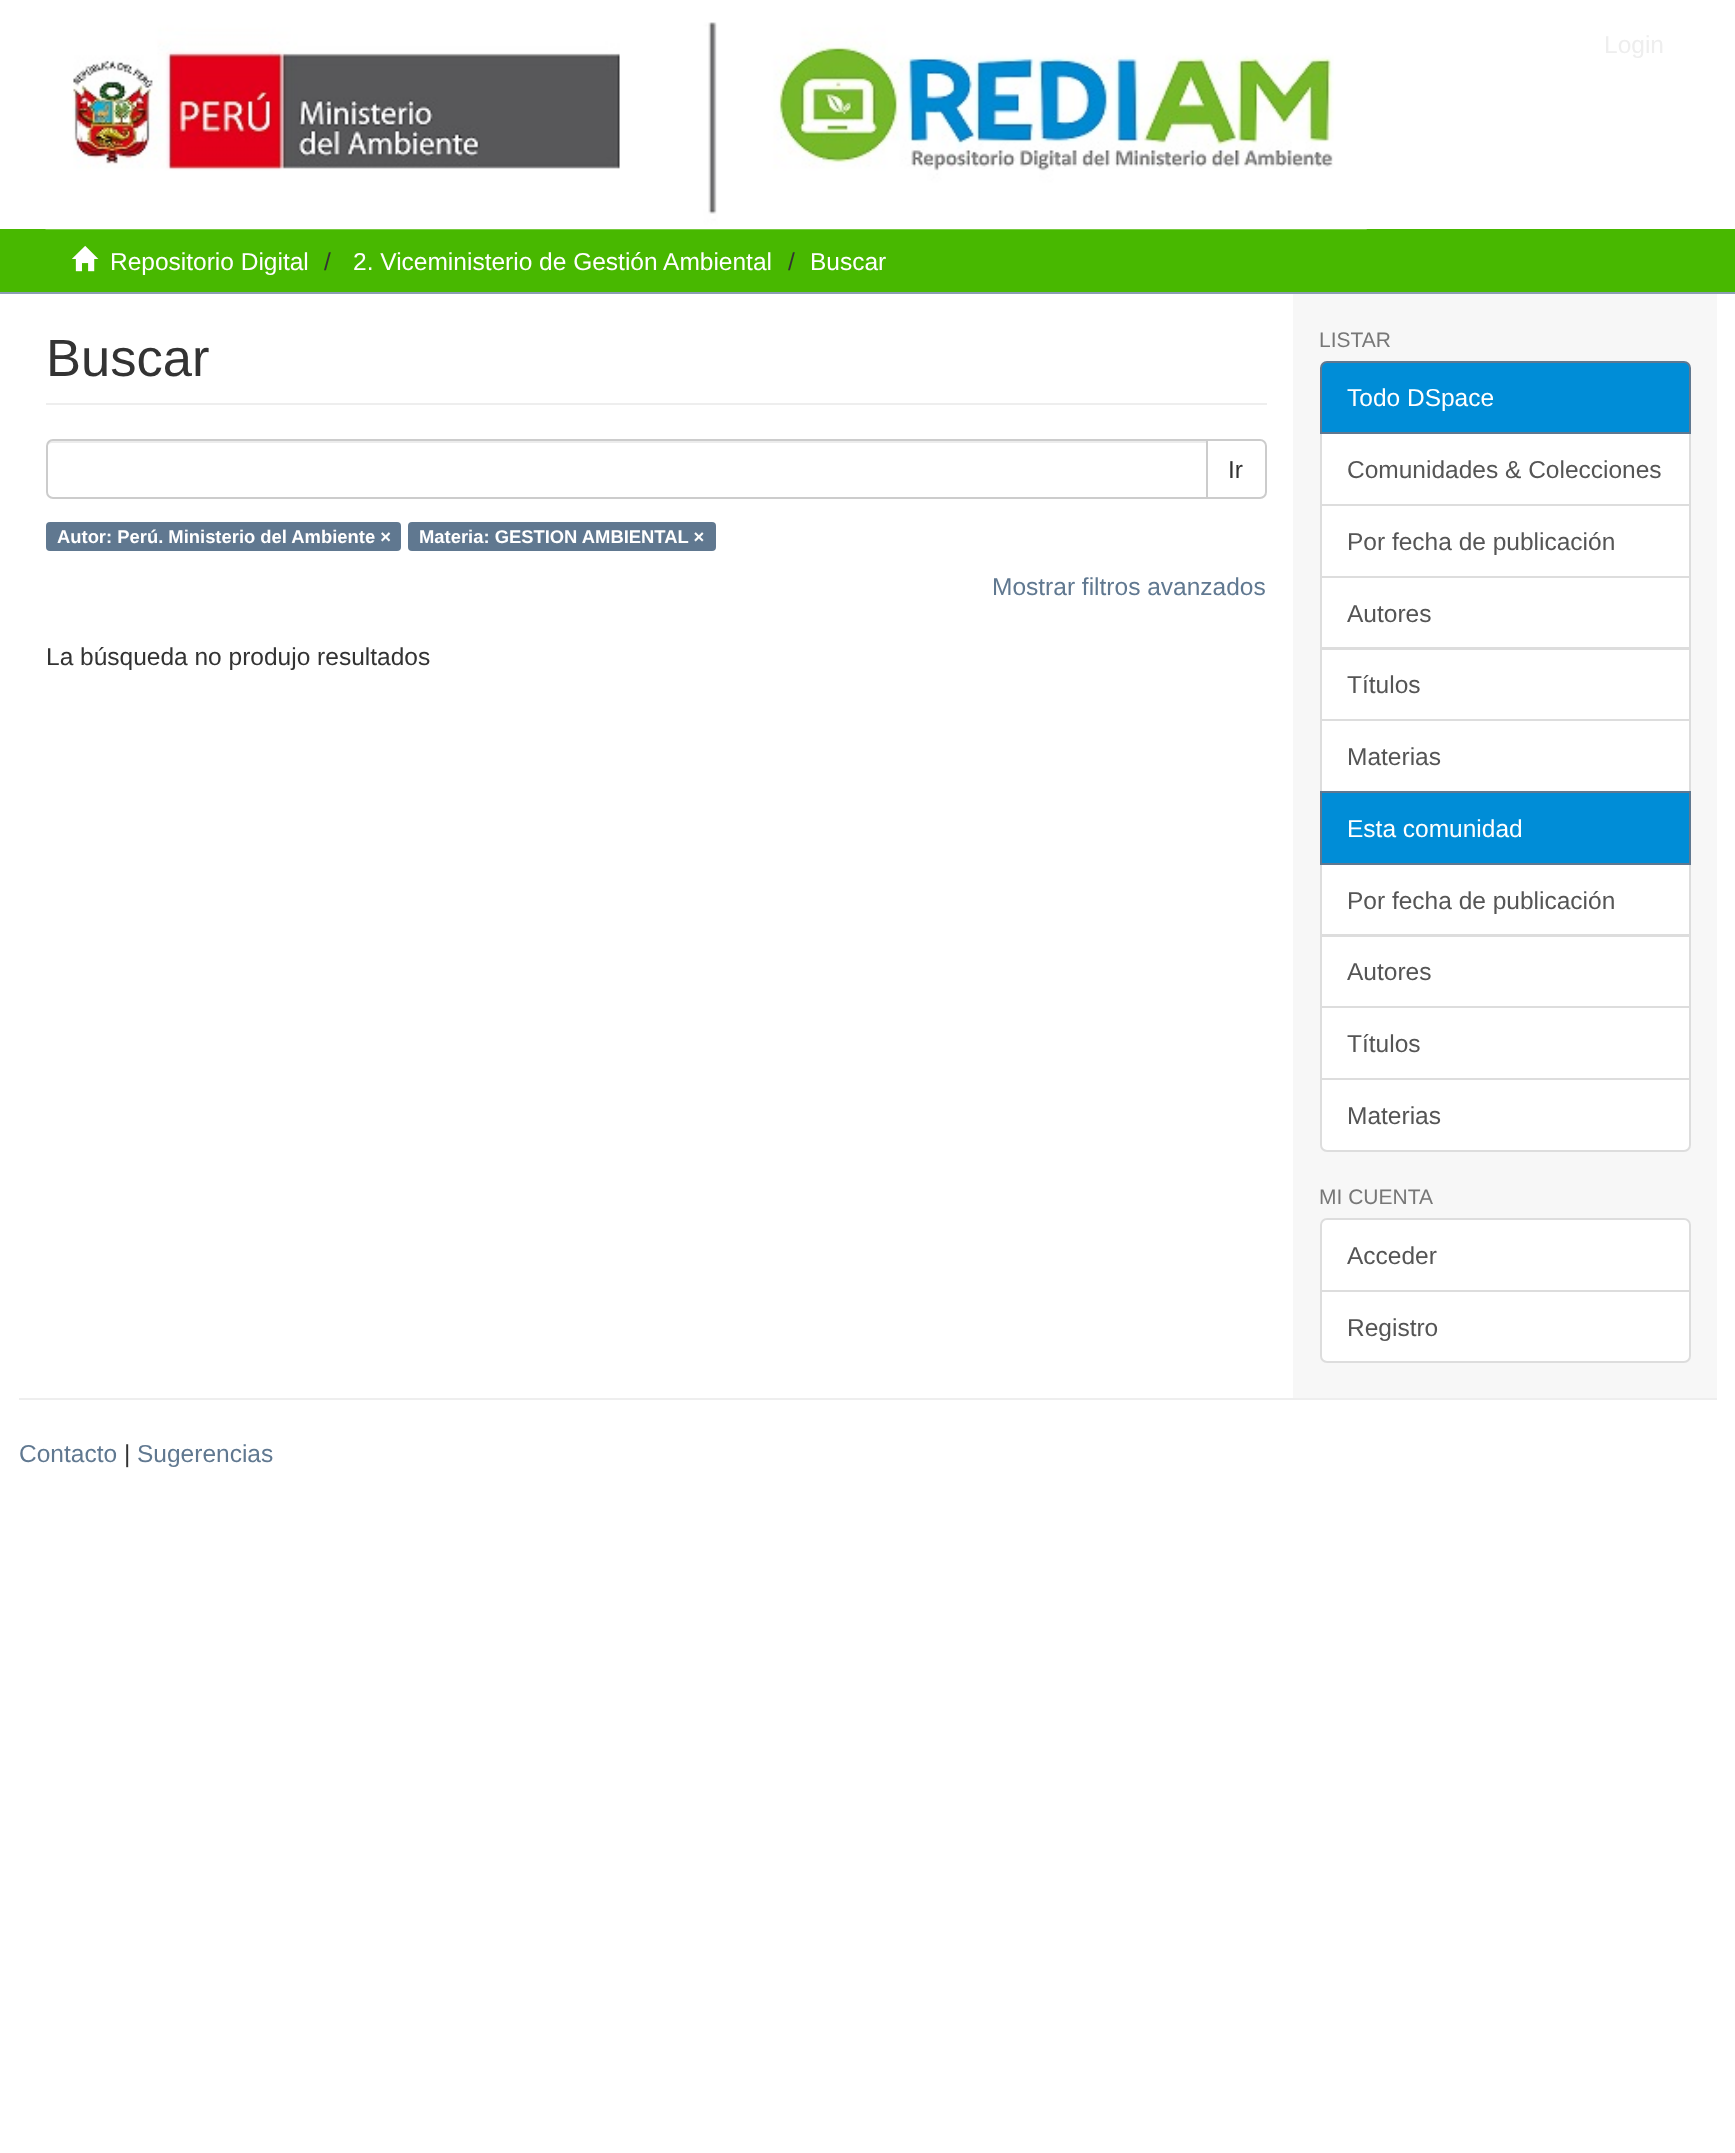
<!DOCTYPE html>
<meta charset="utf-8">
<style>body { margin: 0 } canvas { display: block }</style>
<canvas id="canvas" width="1735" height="2153"></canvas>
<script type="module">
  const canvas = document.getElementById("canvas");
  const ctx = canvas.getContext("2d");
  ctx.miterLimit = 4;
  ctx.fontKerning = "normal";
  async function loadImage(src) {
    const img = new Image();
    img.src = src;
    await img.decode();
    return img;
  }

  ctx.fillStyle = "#ffffff";
  ctx.fillRect(0, 0, 1735, 2153);
  ctx.fillStyle = "#48b800";
  ctx.fillRect(0, 229, 1735, 63);
  ctx.drawImage(await loadImage("img1.png"), 45, 22, 1322, 208);
  ctx.font = "24.5px Liberation Sans";
  ctx.fillStyle = "#eeeeee";
  ctx.fillText("Login", 1604, 53);
  ctx.fillStyle = "#8b9eb2";
  ctx.fillRect(0, 292, 1735, 2);
  ctx.drawImage(await loadImage("img2.png"), 71, 245, 28, 27);
  ctx.fillStyle = "#ffffff";
  ctx.fillText("Repositorio Digital", 110, 270);
  ctx.fillStyle = "#333333";
  ctx.fillText("/", 324, 270);
  ctx.fillStyle = "#ffffff";
  ctx.fillText("2. Viceministerio de Gestión Ambiental", 353, 270);
  ctx.fillStyle = "#333333";
  ctx.fillText("/", 788, 270);
  ctx.fillStyle = "#ffffff";
  ctx.fillText("Buscar", 810, 270);
  ctx.fillStyle = "#f7f7f7";
  ctx.fillRect(1293, 294, 424, 1104);
  ctx.fillStyle = "#eeeeee";
  ctx.fillRect(46, 403, 1221, 2);
  ctx.font = "52.5px Liberation Sans";
  ctx.fillStyle = "#333333";
  ctx.fillText("Buscar", 46, 376);
  ctx.beginPath();
  ctx.roundRect(1207, 440, 59, 58, [0, 6, 6, 0]);
  ctx.strokeStyle = "#cccccc";
  ctx.lineWidth = 2;
  ctx.stroke();
  ctx.fillStyle = "#ffffff";
  ctx.beginPath();
  ctx.roundRect(46, 439, 1162, 60, [7, 0, 0, 7]);
  ctx.fill();
  ctx.fillStyle = "#ececec";
  ctx.beginPath();
  ctx.moveTo(52, 443);
  ctx.lineTo(1206, 443);
  ctx.lineTo(1206, 441);
  ctx.lineTo(52, 441);
  ctx.bezierCurveTo(49, 441, 47, 443, 47, 446);
  ctx.lineTo(47, 448);
  ctx.bezierCurveTo(47, 445, 50, 443, 52, 443);
  ctx.closePath();
  ctx.fill();
  ctx.beginPath();
  ctx.roundRect(47, 440, 1160, 58, [6, 0, 0, 6]);
  ctx.stroke();
  ctx.font = "24.5px Liberation Sans";
  ctx.fillStyle = "#333333";
  ctx.fillText("Ir", 1228, 478);
  ctx.fillStyle = "#607890";
  ctx.beginPath();
  ctx.roundRect(46, 522, 355, 29, 4);
  ctx.fill();
  ctx.font = "bold 18.4px Liberation Sans";
  ctx.fillStyle = "#ffffff";
  ctx.fillText("Autor: Perú. Ministerio del Ambiente ×", 57, 543);
  ctx.fillStyle = "#607890";
  ctx.beginPath();
  ctx.roundRect(408, 522, 308, 29, 4);
  ctx.fill();
  ctx.fillStyle = "#ffffff";
  ctx.fillText("Materia: GESTION AMBIENTAL ×", 419, 543);
  ctx.font = "24.5px Liberation Sans";
  ctx.fillStyle = "#607890";
  ctx.fillText("Mostrar filtros avanzados", 992, 595);
  ctx.fillStyle = "#333333";
  ctx.fillText("La búsqueda no produjo resultados", 46, 665);
  ctx.font = "21px Liberation Sans";
  ctx.fillStyle = "#777777";
  ctx.fillText("LISTAR", 1319, 347);
  ctx.fillStyle = "#ffffff";
  ctx.beginPath();
  ctx.rect(1321, 433, 369, 72);
  ctx.fill();
  ctx.strokeStyle = "#dddddd";
  ctx.stroke();
  ctx.fillStyle = "#008dd7";
  ctx.beginPath();
  ctx.roundRect(1321, 362, 369, 71, [6, 6, 0, 0]);
  ctx.fill();
  ctx.strokeStyle = "#607890";
  ctx.stroke();
  ctx.font = "24.5px Liberation Sans";
  ctx.fillStyle = "#ffffff";
  ctx.fillText("Todo DSpace", 1347, 406);
  ctx.fillStyle = "#555555";
  ctx.fillText("Comunidades & Colecciones", 1347, 478);
  ctx.fillStyle = "#ffffff";
  ctx.beginPath();
  ctx.rect(1321, 505, 369, 72);
  ctx.fill();
  ctx.strokeStyle = "#dddddd";
  ctx.stroke();
  ctx.fillStyle = "#555555";
  ctx.fillText("Por fecha de publicación", 1347, 550);
  ctx.fillStyle = "#ffffff";
  ctx.beginPath();
  ctx.rect(1321, 577, 369, 71);
  ctx.fill();
  ctx.stroke();
  ctx.fillStyle = "#555555";
  ctx.fillText("Autores", 1347, 622);
  ctx.fillStyle = "#ffffff";
  ctx.beginPath();
  ctx.rect(1321, 649, 369, 71);
  ctx.fill();
  ctx.stroke();
  ctx.fillStyle = "#555555";
  ctx.fillText("Títulos", 1347, 693);
  ctx.fillStyle = "#ffffff";
  ctx.beginPath();
  ctx.rect(1321, 720, 369, 72);
  ctx.fill();
  ctx.stroke();
  ctx.fillStyle = "#555555";
  ctx.fillText("Materias", 1347, 765);
  ctx.fillStyle = "#ffffff";
  ctx.beginPath();
  ctx.rect(1321, 864, 369, 71);
  ctx.fill();
  ctx.stroke();
  ctx.fillStyle = "#008dd7";
  ctx.beginPath();
  ctx.rect(1321, 792, 369, 72);
  ctx.fill();
  ctx.strokeStyle = "#607890";
  ctx.stroke();
  ctx.fillStyle = "#ffffff";
  ctx.fillText("Esta comunidad", 1347, 837);
  ctx.fillStyle = "#555555";
  ctx.fillText("Por fecha de publicación", 1347, 909);
  ctx.fillStyle = "#ffffff";
  ctx.beginPath();
  ctx.rect(1321, 936, 369, 71);
  ctx.fill();
  ctx.strokeStyle = "#dddddd";
  ctx.stroke();
  ctx.fillStyle = "#555555";
  ctx.fillText("Autores", 1347, 980);
  ctx.fillStyle = "#ffffff";
  ctx.beginPath();
  ctx.rect(1321, 1007, 369, 72);
  ctx.fill();
  ctx.stroke();
  ctx.fillStyle = "#555555";
  ctx.fillText("Títulos", 1347, 1052);
  ctx.fillStyle = "#ffffff";
  ctx.beginPath();
  ctx.roundRect(1321, 1079, 369, 72, [0, 0, 6, 6]);
  ctx.fill();
  ctx.stroke();
  ctx.fillStyle = "#555555";
  ctx.fillText("Materias", 1347, 1124);
  ctx.font = "21px Liberation Sans";
  ctx.fillStyle = "#777777";
  ctx.fillText("MI CUENTA", 1319, 1204);
  ctx.fillStyle = "#ffffff";
  ctx.beginPath();
  ctx.roundRect(1321, 1219, 369, 72, [6, 6, 0, 0]);
  ctx.fill();
  ctx.stroke();
  ctx.font = "24.5px Liberation Sans";
  ctx.fillStyle = "#555555";
  ctx.fillText("Acceder", 1347, 1264);
  ctx.fillStyle = "#ffffff";
  ctx.beginPath();
  ctx.roundRect(1321, 1291, 369, 71, [0, 0, 6, 6]);
  ctx.fill();
  ctx.stroke();
  ctx.fillStyle = "#555555";
  ctx.fillText("Registro", 1347, 1336);
  ctx.fillStyle = "#eeeeee";
  ctx.fillRect(19, 1398, 1698, 2);
  ctx.fillStyle = "#607890";
  ctx.fillText("Contacto", 19, 1462);
  ctx.fillStyle = "#333333";
  ctx.fillText("|", 124, 1462);
  ctx.fillStyle = "#607890";
  ctx.fillText("Sugerencias", 137, 1462);
</script>
